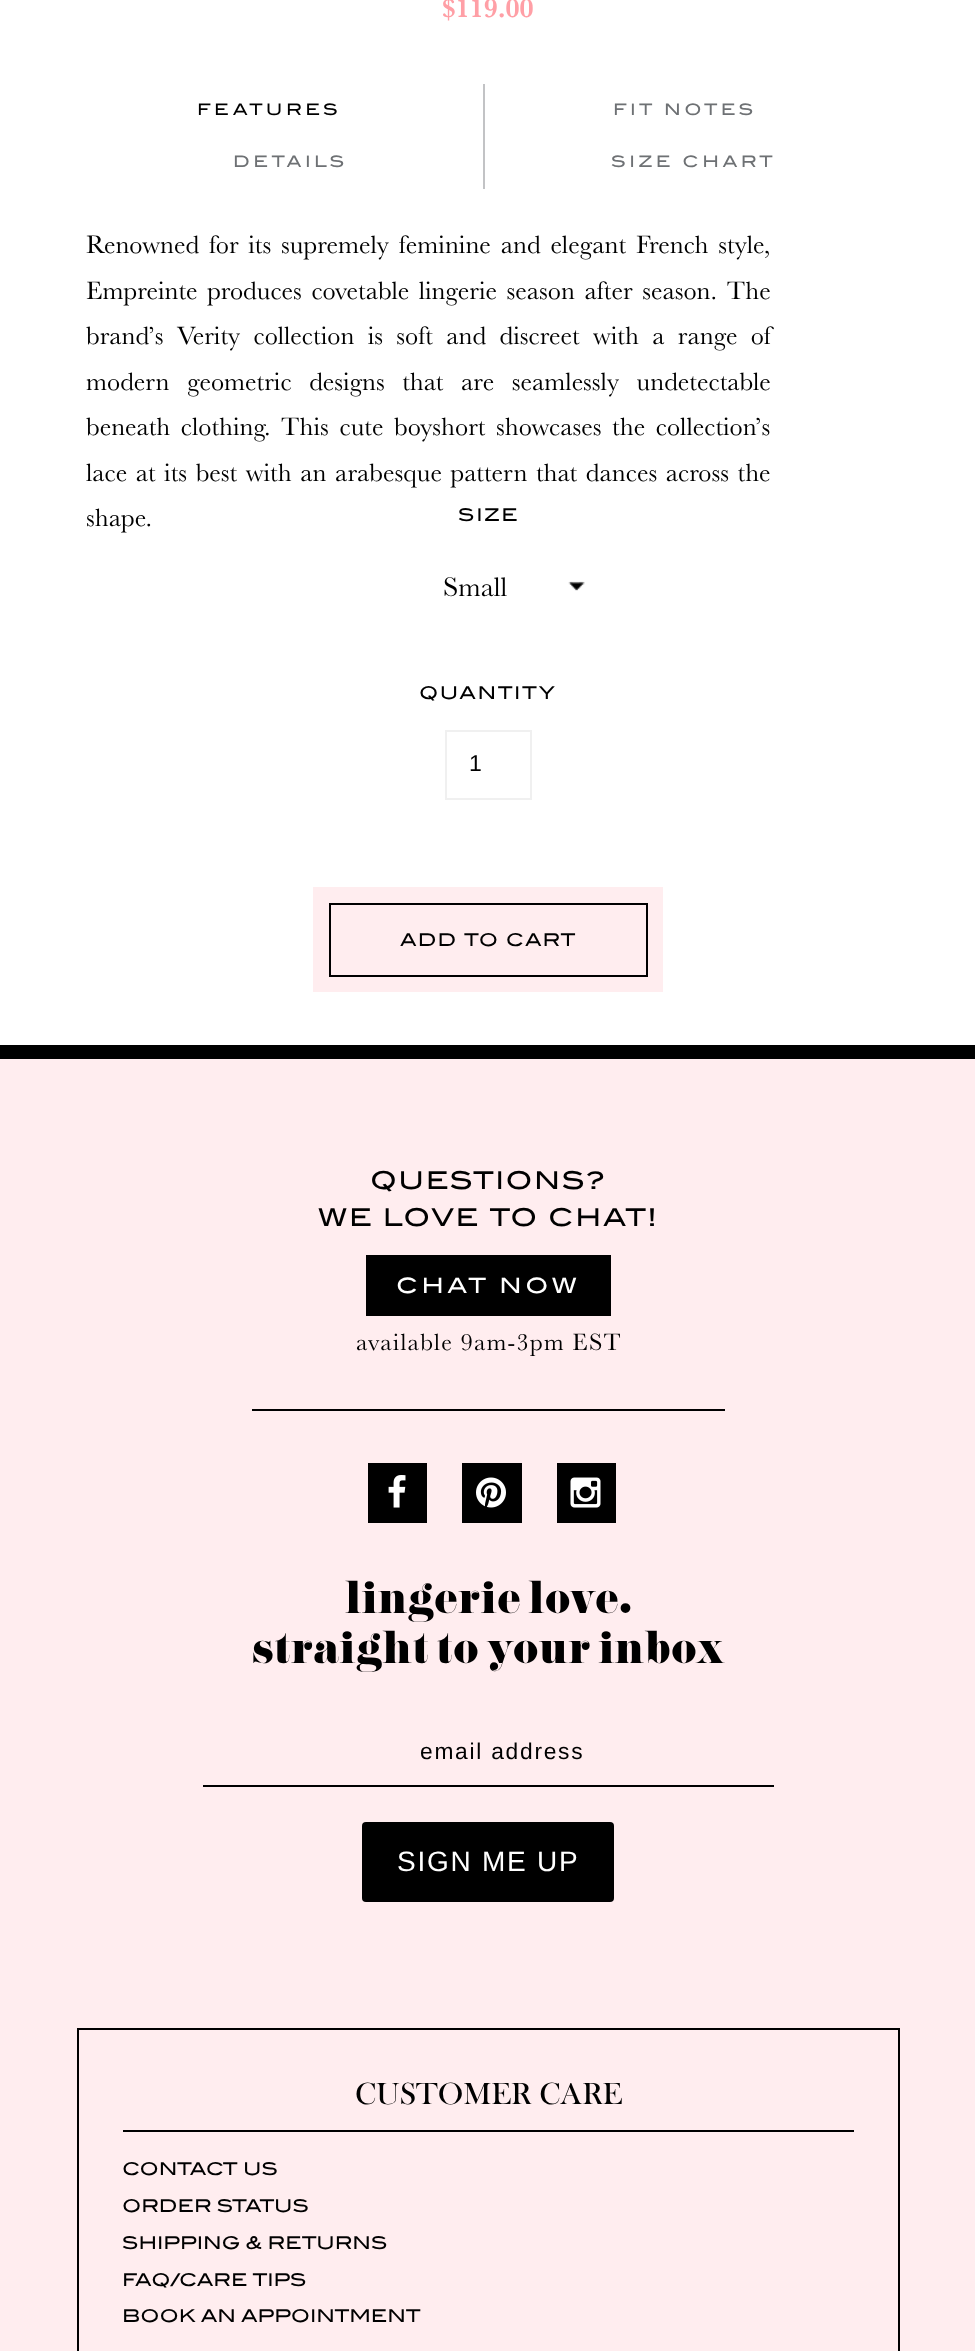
<!DOCTYPE html>
<meta charset="utf-8">
<style>body { margin: 0 } canvas { display: block }</style>
<canvas id="canvas" width="975" height="2351"></canvas>
<script type="module">
  const canvas = document.getElementById("canvas");
  const ctx = canvas.getContext("2d");
  ctx.miterLimit = 4;
  ctx.fontKerning = "normal";
  async function loadImage(src) {
    const img = new Image();
    img.src = src;
    await img.decode();
    return img;
  }

  ctx.fillStyle = "#ffffff";
  ctx.fillRect(0, 0, 975, 2351);
  ctx.font = "600 28px Baskerville";
  ctx.fillStyle = "#ff9fa6";
  ctx.fillText("$119.00", 442, 17);
  ctx.fillStyle = "#c2c3c5";
  ctx.fillRect(483, 84, 2, 105);
  ctx.letterSpacing = "3.5px";
  ctx.font = "500 15.75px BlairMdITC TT";
  ctx.fillStyle = "#000000";
  ctx.fillText("FEATURES", 197, 115);
  ctx.fillStyle = "#6e7174";
  ctx.fillText("FIT NOTES", 613, 115);
  ctx.fillText("DETAILS", 233, 167);
  ctx.fillText("SIZE CHART", 611, 167);
  ctx.letterSpacing = "0px";
  ctx.wordSpacing = "3.25px";
  ctx.font = "26.25px Baskerville";
  ctx.fillStyle = "#000000";
  ctx.fillText("Renowned for its supremely feminine and elegant French style,", 86, 253);
  ctx.wordSpacing = "3px";
  ctx.fillText("Empreinte produces covetable lingerie season after season. The", 86, 299);
  ctx.wordSpacing = "6.75px";
  ctx.fillText("brand’s Verity collection is soft and discreet with a range of", 86, 344);
  ctx.wordSpacing = "11px";
  ctx.fillText("modern geometric designs that are seamlessly undetectable", 86, 390);
  ctx.wordSpacing = "4px";
  ctx.fillText("beneath clothing. This cute boyshort showcases the collection’s", 86, 435);
  ctx.wordSpacing = "2px";
  ctx.fillText("lace at its best with an arabesque pattern that dances across the", 86, 481);
  ctx.wordSpacing = "0px";
  ctx.fillText("shape.", 86, 526);
  ctx.letterSpacing = "1.75px";
  ctx.font = "500 17.5px BlairMdITC TT";
  ctx.fillText("SIZE", 458, 521);
  ctx.drawImage(await loadImage("img1.png"), 568, 581, 17, 10);
  ctx.letterSpacing = "0px";
  ctx.font = "28px Baskerville";
  ctx.fillText("Small", 443, 596);
  ctx.letterSpacing = "1.75px";
  ctx.font = "500 17.5px BlairMdITC TT";
  ctx.fillText("QUANTITY", 419, 699);
  ctx.strokeStyle = "#f0f0f0";
  ctx.lineWidth = 2;
  ctx.strokeRect(446, 731, 85, 68);
  ctx.letterSpacing = "0px";
  ctx.font = "23px Liberation Sans";
  ctx.fillText("1", 469, 771);
  ctx.fillStyle = "#ffedef";
  ctx.fillRect(313, 887, 350, 105);
  ctx.strokeStyle = "#000000";
  ctx.strokeRect(330, 904, 317, 72);
  ctx.letterSpacing = "1.25px";
  ctx.font = "500 17.5px BlairMdITC TT";
  ctx.fillStyle = "#000000";
  ctx.fillText("ADD TO CART", 400, 946);
  ctx.fillStyle = "#ffedef";
  ctx.fillRect(0, 1059, 975, 1292);
  ctx.fillStyle = "#000000";
  ctx.fillRect(0, 1045, 975, 14);
  ctx.letterSpacing = "1.75px";
  ctx.font = "500 24.5px BlairMdITC TT";
  ctx.fillText("QUESTIONS?", 370, 1189);
  ctx.fillText("WE LOVE TO CHAT!", 318, 1226);
  ctx.fillRect(366, 1255, 245, 61);
  ctx.letterSpacing = "3.5px";
  ctx.font = "500 21px BlairMdITC TT";
  ctx.fillStyle = "#ffffff";
  ctx.fillText("CHAT NOW", 396, 1293);
  ctx.letterSpacing = "1.25px";
  ctx.font = "24.5px Baskerville";
  ctx.fillStyle = "#000000";
  ctx.fillText("available 9am-3pm EST", 356, 1350);
  ctx.fillRect(252, 1409, 473, 2);
  ctx.fillRect(368, 1463, 59, 60);
  ctx.drawImage(await loadImage("img2.png"), 388, 1475, 18, 33);
  ctx.fillRect(462, 1463, 60, 60);
  ctx.drawImage(await loadImage("img3.png"), 476, 1477, 30, 31);
  ctx.fillRect(557, 1463, 59, 60);
  ctx.drawImage(await loadImage("img4.png"), 570, 1477, 31, 31);
  ctx.letterSpacing = "0px";
  ctx.font = "42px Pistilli";
  ctx.fillText("lingerie love.", 345, 1613);
  ctx.fillText("straight to your inbox", 252, 1663);
  ctx.fillRect(203, 1785, 571, 2);
  ctx.letterSpacing = "1.75px";
  ctx.font = "22.75px Liberation Sans";
  ctx.fillText("email address", 420, 1759);
  ctx.beginPath();
  ctx.roundRect(362, 1822, 252, 80, 4);
  ctx.fill();
  ctx.font = "28px Liberation Sans";
  ctx.fillStyle = "#ffffff";
  ctx.fillText("SIGN ME UP", 397, 1871);
  ctx.strokeRect(78, 2029, 821, 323);
  ctx.fillStyle = "#000000";
  ctx.fillRect(123, 2130, 731, 2);
  ctx.letterSpacing = "0px";
  ctx.font = "31.5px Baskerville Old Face";
  ctx.fillText("CUSTOMER CARE", 355, 2104);
  ctx.font = "500 17.5px BlairMdITC TT";
  ctx.fillText("CONTACT US", 122, 2175);
  ctx.fillText("ORDER STATUS", 122, 2212);
  ctx.fillText("SHIPPING & RETURNS", 122, 2249);
  ctx.fillText("FAQ/CARE TIPS", 122, 2286);
  ctx.fillText("BOOK AN APPOINTMENT", 122, 2322);
</script>
